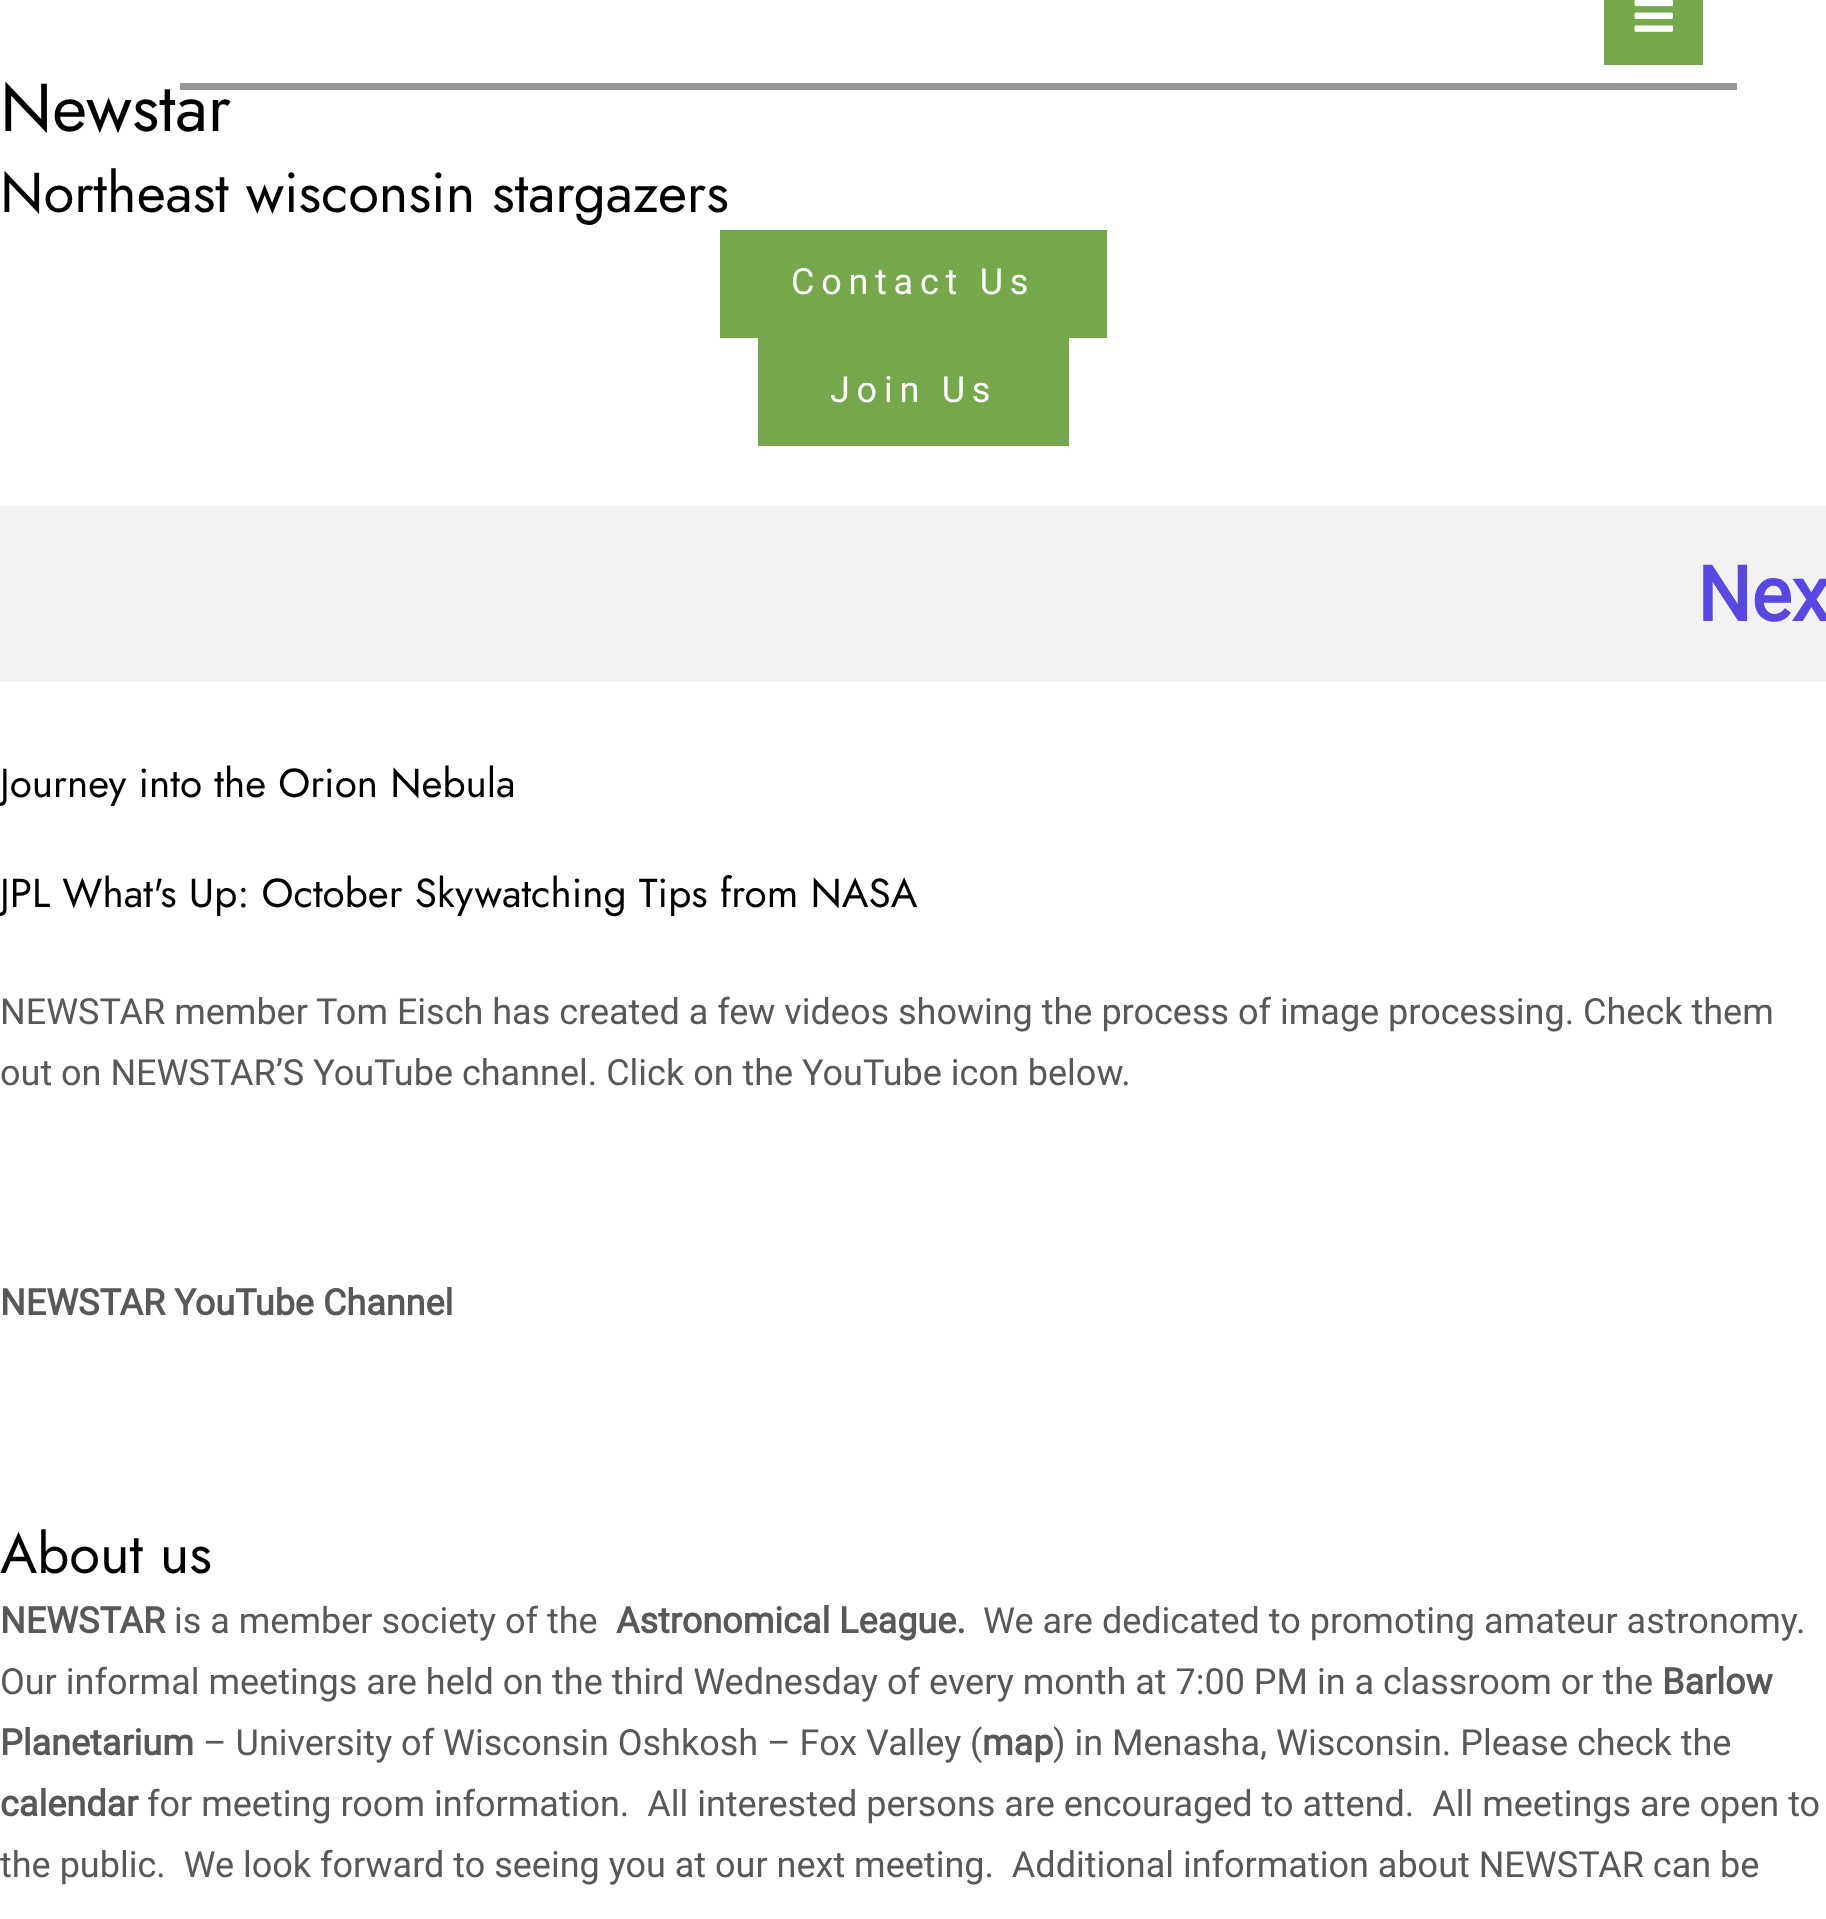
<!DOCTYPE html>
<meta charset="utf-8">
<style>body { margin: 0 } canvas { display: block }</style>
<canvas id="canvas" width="1826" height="1919"></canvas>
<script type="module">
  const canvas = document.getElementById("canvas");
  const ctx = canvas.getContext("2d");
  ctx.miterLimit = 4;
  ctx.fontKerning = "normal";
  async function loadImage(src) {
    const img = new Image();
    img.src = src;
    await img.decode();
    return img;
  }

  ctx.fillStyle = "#ffffff";
  ctx.fillRect(0, 0, 1826, 1919);
  ctx.font = "67.5px Jost";
  ctx.fillStyle = "#000000";
  ctx.fillText("Newstar", 0, 131);
  ctx.fillStyle = "#989898";
  ctx.fillRect(180, 83, 1557, 7);
  ctx.fillStyle = "#74a84a";
  ctx.fillRect(1604, 0, 99, 65);
  ctx.drawImage(await loadImage("img1.png"), 1634, 0, 40, 32);
  ctx.font = "56.25px Jost";
  ctx.fillStyle = "#000000";
  ctx.fillText("Northeast wisconsin stargazers", 0, 212);
  ctx.fillStyle = "#74a84a";
  ctx.fillRect(720, 230, 387, 108);
  ctx.letterSpacing = "6.75px";
  ctx.font = "36px Roboto";
  ctx.fillStyle = "#ffffff";
  ctx.fillText("Contact Us", 791, 294);
  ctx.fillStyle = "#74a84a";
  ctx.fillRect(758, 338, 311, 108);
  ctx.fillStyle = "#ffffff";
  ctx.fillText("Join Us", 830, 402);
  ctx.fillStyle = "#f2f2f2";
  ctx.fillRect(0, 506, 1826, 176);
  ctx.letterSpacing = "0px";
  ctx.font = "bold 76px Roboto";
  ctx.fillStyle = "#5947e1";
  ctx.fillText("Nex", 1697, 621);
  ctx.font = "40.5px Jost";
  ctx.fillStyle = "#000000";
  ctx.fillText("Journey into the Orion Nebula", 0, 797);
  ctx.fillText("JPL What's Up: October Skywatching Tips from NASA", 0, 907);
  ctx.font = "36px Roboto";
  ctx.fillStyle = "#585858";
  ctx.fillText("NEWSTAR member Tom Eisch has created a few videos showing the process of image processing. Check them", 0, 1024);
  ctx.fillText("out on NEWSTAR’S YouTube channel. Click on the YouTube icon below.", 0, 1085);
  ctx.font = "bold 36px Roboto";
  ctx.fillText("NEWSTAR YouTube Channel", 0, 1315);
  ctx.font = "56.25px Jost";
  ctx.fillStyle = "#000000";
  ctx.fillText("About us", 0, 1573);
  ctx.font = "bold 36px Roboto";
  ctx.fillStyle = "#585858";
  ctx.fillText("NEWSTAR", 0, 1633);
  ctx.font = "36px Roboto";
  ctx.fillText("is a member society of the", 174, 1633);
  ctx.font = "bold 36px Roboto";
  ctx.fillText("Astronomical League.", 616, 1633);
  ctx.font = "36px Roboto";
  ctx.fillText("We are dedicated to promoting amateur astronomy.", 983, 1633);
  ctx.fillText("Our informal meetings are held on the third Wednesday of every month at 7:00 PM in a classroom or the", 0, 1694);
  ctx.font = "bold 36px Roboto";
  ctx.fillText("Barlow", 1662, 1694);
  ctx.fillText("Planetarium", 0, 1755);
  ctx.font = "36px Roboto";
  ctx.fillText("– University of Wisconsin Oshkosh – Fox Valley (", 203, 1755);
  ctx.font = "bold 36px Roboto";
  ctx.fillText("map", 982, 1755);
  ctx.font = "36px Roboto";
  ctx.fillText(") in Menasha, Wisconsin. Please check the", 1053, 1755);
  ctx.font = "bold 36px Roboto";
  ctx.fillText("calendar", 0, 1816);
  ctx.font = "36px Roboto";
  ctx.fillText("for meeting room information.  All interested persons are encouraged to attend.  All meetings are open to", 147, 1816);
  ctx.fillText("the public.  We look forward to seeing you at our next meeting.  Additional information about NEWSTAR can be", 0, 1877);
</script>
